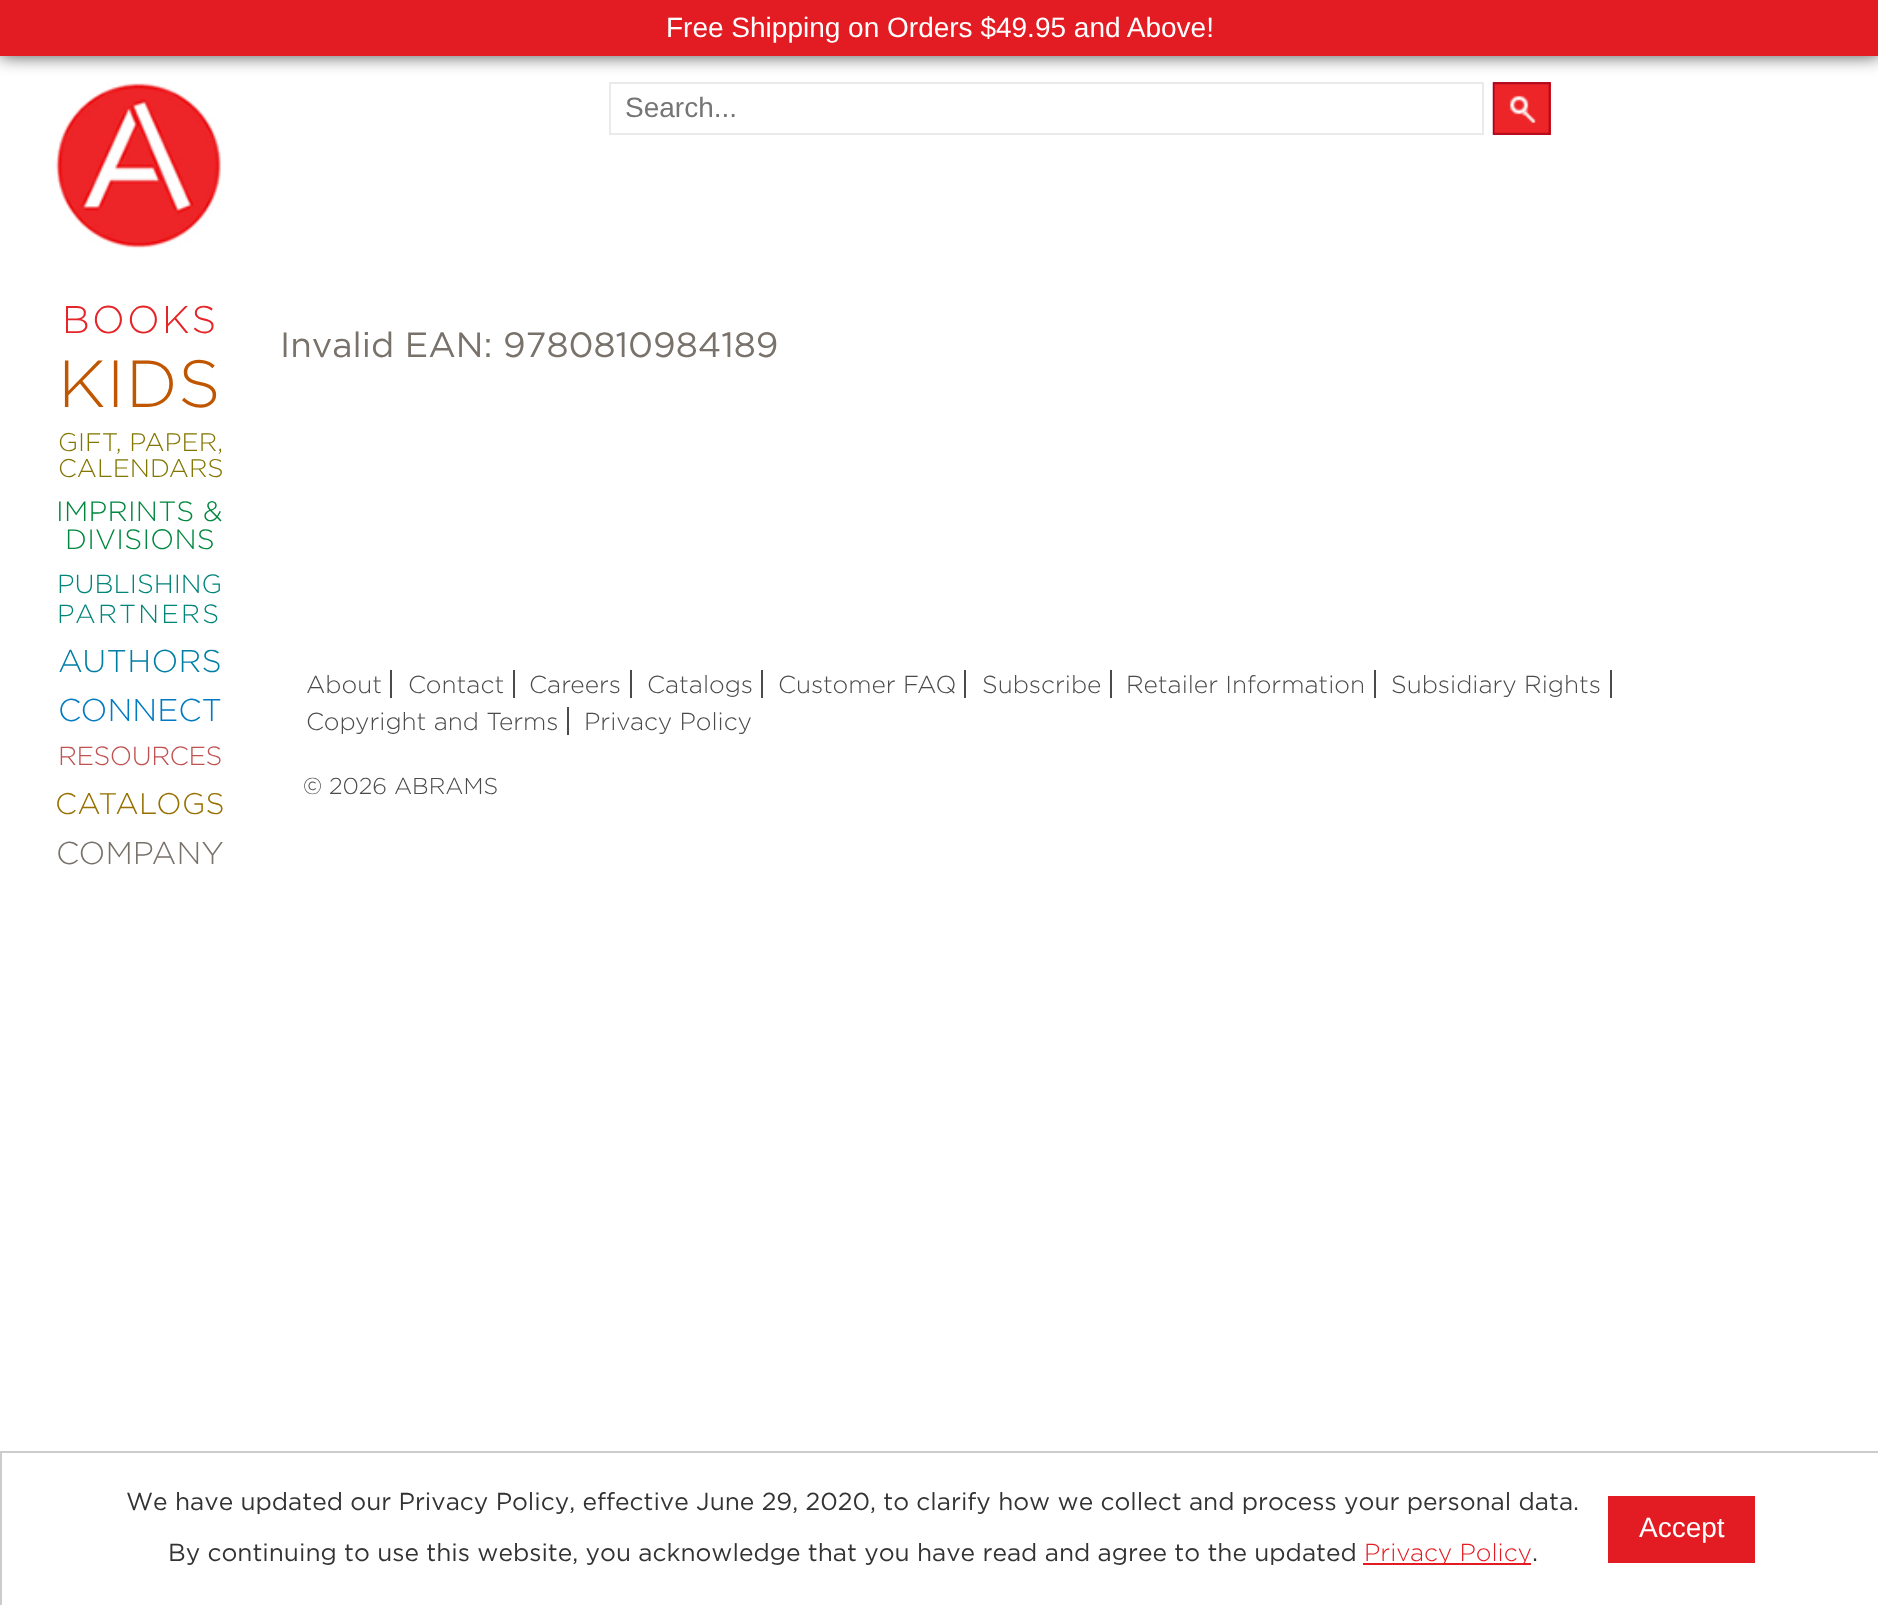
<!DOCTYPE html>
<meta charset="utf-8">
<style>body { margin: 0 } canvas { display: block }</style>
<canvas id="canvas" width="1878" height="1605"></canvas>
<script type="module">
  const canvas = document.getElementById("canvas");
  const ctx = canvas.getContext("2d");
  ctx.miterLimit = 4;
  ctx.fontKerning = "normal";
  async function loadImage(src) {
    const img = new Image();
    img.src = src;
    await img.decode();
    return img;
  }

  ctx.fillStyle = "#ffffff";
  ctx.fillRect(0, 0, 1878, 1605);
  ctx.drawImage(await loadImage("img1.png"), 55, 83, 166, 166);
  ctx.strokeStyle = "#eaeaea";
  ctx.lineWidth = 2;
  ctx.strokeRect(610, 83, 873, 51);
  ctx.fillStyle = "#ed2528";
  ctx.fillRect(1493, 82, 58, 53);
  ctx.drawImage(await loadImage("img2.png"), 1492, 82, 59, 53);
  ctx.fillStyle = "rgba(0, 0, 0, 0.7)";
  ctx.filter = "blur(9px)";
  ctx.beginPath();
  ctx.rect(0, 0, 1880, 56);
  ctx.fill();
  ctx.filter = "none";
  ctx.fillStyle = "#e31c23";
  ctx.fillRect(0, 0, 1878, 56);
  ctx.font = "28px Liberation Sans";
  ctx.fillStyle = "#ffffff";
  ctx.fillText("Free Shipping on Orders $49.95 and Above!", 666, 37);
  ctx.letterSpacing = "2.25px";
  ctx.font = "300 38.5px Gotham";
  ctx.fillStyle = "#e52528";
  ctx.fillText("BOOKS", 62, 333);
  ctx.letterSpacing = "1px";
  ctx.font = "300 66.5px Gotham";
  ctx.fillStyle = "#c05700";
  ctx.fillText("KIDS", 58, 407);
  ctx.letterSpacing = "0px";
  ctx.font = "300 25.5px Gotham";
  ctx.fillStyle = "#837600";
  ctx.fillText("GIFT, PAPER,", 58, 451);
  ctx.fillText("CALENDARS", 58, 477);
  ctx.letterSpacing = "0.25px";
  ctx.font = "300 28px Gotham";
  ctx.fillStyle = "#00883f";
  ctx.fillText("IMPRINTS &", 56, 521);
  ctx.fillText("DIVISIONS", 65, 549);
  ctx.letterSpacing = "0px";
  ctx.font = "300 26.25px Gotham";
  ctx.fillStyle = "#008579";
  ctx.fillText("PUBLISHING", 57, 593);
  ctx.letterSpacing = "2.25px";
  ctx.fillText("PARTNERS", 57, 623);
  ctx.letterSpacing = "0.25px";
  ctx.font = "300 31.5px Gotham";
  ctx.fillStyle = "#007fa5";
  ctx.fillText("AUTHORS", 58, 672);
  ctx.letterSpacing = "0px";
  ctx.fillStyle = "#007bc3";
  ctx.fillText("CONNECT", 58, 721);
  ctx.letterSpacing = "-0.5px";
  ctx.font = "300 26.25px Gotham";
  ctx.fillStyle = "#c15251";
  ctx.fillText("RESOURCES", 58, 765);
  ctx.letterSpacing = "0.25px";
  ctx.font = "300 29.75px Gotham";
  ctx.fillStyle = "#977001";
  ctx.fillText("CATALOGS", 55, 814);
  ctx.letterSpacing = "0px";
  ctx.font = "300 31.5px Gotham";
  ctx.fillStyle = "#78726b";
  ctx.fillText("COMPANY", 56, 864);
  ctx.font = "28px Liberation Sans";
  ctx.fillStyle = "#757575";
  ctx.fillText("Search...", 625, 117);
  ctx.font = "35px Gotham";
  ctx.fillStyle = "#78726b";
  ctx.fillText("Invalid EAN: 9780810984189", 280, 357);
  ctx.font = "300 24.5px Gotham";
  ctx.fillStyle = "#4b4b4d";
  ctx.fillText("About", 306, 693);
  ctx.fillRect(390, 670, 2, 28);
  ctx.fillText("Contact", 408, 693);
  ctx.fillRect(513, 670, 2, 28);
  ctx.fillText("Careers", 529, 693);
  ctx.fillRect(630, 670, 2, 28);
  ctx.fillText("Catalogs", 647, 693);
  ctx.fillRect(761, 670, 2, 28);
  ctx.fillText("Customer FAQ", 778, 693);
  ctx.fillRect(964, 670, 2, 28);
  ctx.fillText("Subscribe", 982, 693);
  ctx.fillRect(1110, 670, 2, 28);
  ctx.fillText("Retailer Information", 1126, 693);
  ctx.fillRect(1374, 670, 2, 28);
  ctx.fillText("Subsidiary Rights", 1391, 693);
  ctx.fillRect(1610, 670, 2, 28);
  ctx.fillText("Copyright and Terms", 306, 730);
  ctx.fillRect(567, 707, 2, 28);
  ctx.fillText("Privacy Policy", 584, 730);
  ctx.font = "300 23px Gotham";
  ctx.fillText("© 2026 ABRAMS", 303, 794);
  ctx.strokeStyle = "#cccccc";
  ctx.strokeRect(1, 1452, 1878, 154);
  ctx.font = "24.5px Gotham";
  ctx.fillStyle = "#333333";
  ctx.fillText("We have updated our Privacy Policy, effective June 29, 2020, to clarify how we collect and process your personal data.", 126, 1510);
  ctx.fillText("By continuing to use this website, you acknowledge that you have read and agree to the updated", 168, 1561);
  ctx.fillStyle = "#e31c23";
  ctx.fillRect(1363, 1563, 168, 2);
  ctx.font = "300 24.5px Gotham";
  ctx.fillText("Privacy Policy", 1364, 1561);
  ctx.font = "24.5px Gotham";
  ctx.fillStyle = "#333333";
  ctx.fillText(".", 1532, 1561);
  ctx.fillStyle = "#e31c23";
  ctx.fillRect(1608, 1496, 147, 67);
  ctx.font = "28px Liberation Sans";
  ctx.fillStyle = "#ffffff";
  ctx.fillText("Accept", 1639, 1537);
</script>
